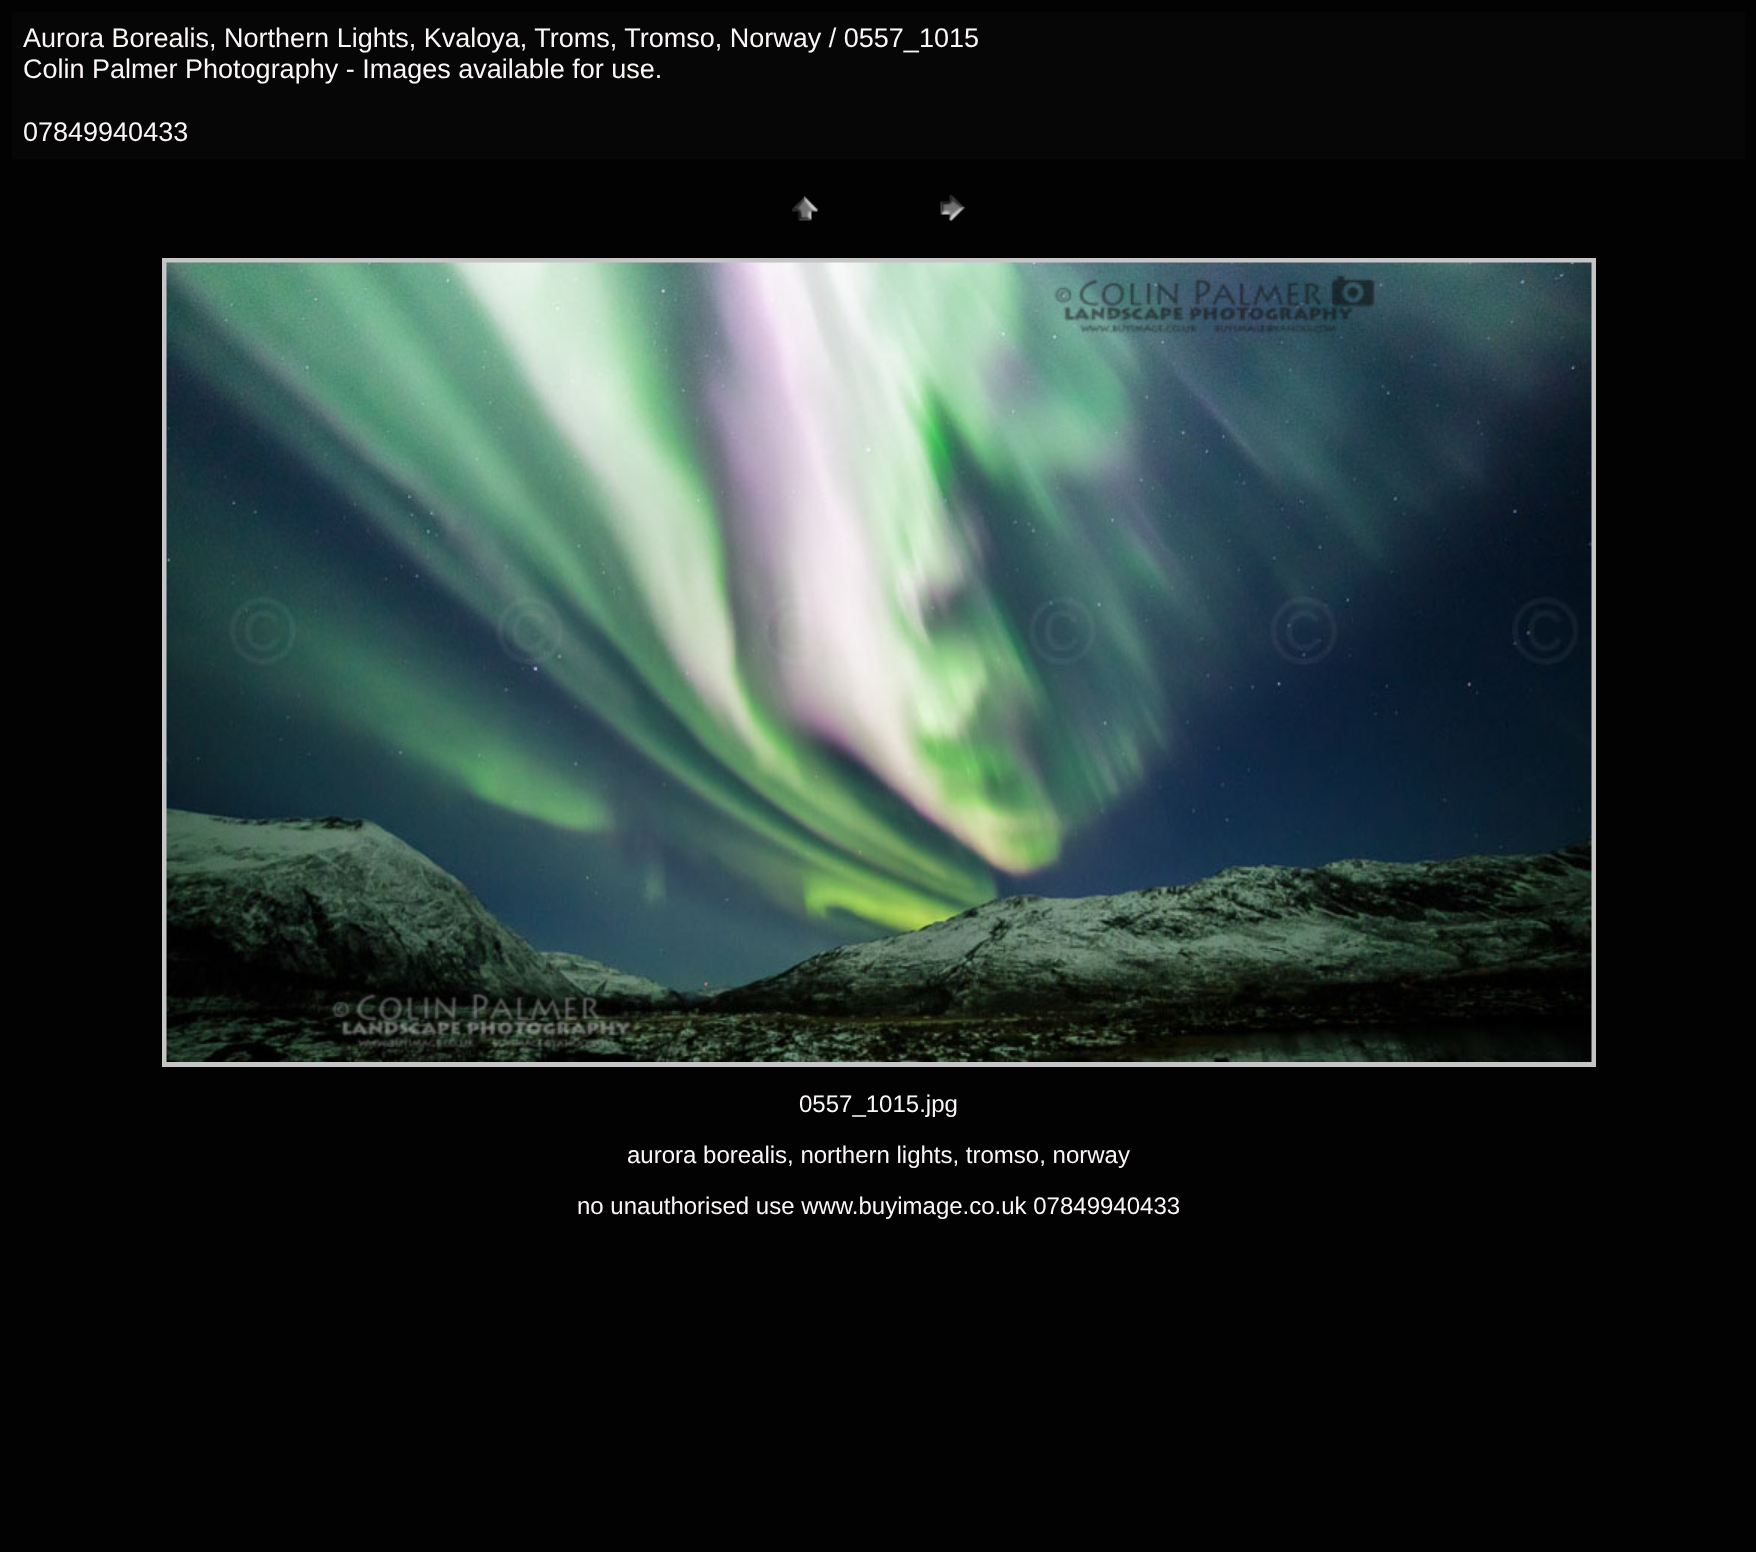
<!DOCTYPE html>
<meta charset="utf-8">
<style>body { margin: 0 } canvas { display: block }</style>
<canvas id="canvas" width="1756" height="1552"></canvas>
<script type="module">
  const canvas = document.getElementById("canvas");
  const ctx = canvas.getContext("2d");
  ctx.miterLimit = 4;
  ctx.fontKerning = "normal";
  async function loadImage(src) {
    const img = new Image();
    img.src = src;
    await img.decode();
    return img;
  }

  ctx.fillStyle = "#020202";
  ctx.fillRect(0, 0, 1756, 1552);
  ctx.fillStyle = "#060606";
  ctx.fillRect(12, 12, 1733, 147);
  ctx.font = "27px Liberation Sans";
  ctx.fillStyle = "#fcf7f7";
  ctx.fillText("Aurora Borealis, Northern Lights, Kvaloya, Troms, Tromso, Norway / 0557_1015", 23, 47);
  ctx.fillText("Colin Palmer Photography - Images available for use.", 23, 78);
  ctx.fillText("07849940433", 23, 141);
  ctx.drawImage(await loadImage("img1.png"), 791, 196, 27, 25);
  ctx.drawImage(await loadImage("img2.png"), 940, 194, 25, 27);
  ctx.strokeStyle = "#c5c5c6";
  ctx.lineWidth = 5;
  ctx.strokeRect(164.5, 260.5, 1429, 804);
  ctx.drawImage(await loadImage("img3.png"), 166, 262, 1426, 800);
  ctx.font = "24px Liberation Sans";
  ctx.fillText("0557_1015.jpg", 799, 1112);
  ctx.fillText("aurora borealis, northern lights, tromso, norway", 627, 1163);
  ctx.fillText("no unauthorised use www.buyimage.co.uk 07849940433", 577, 1214);
</script>
